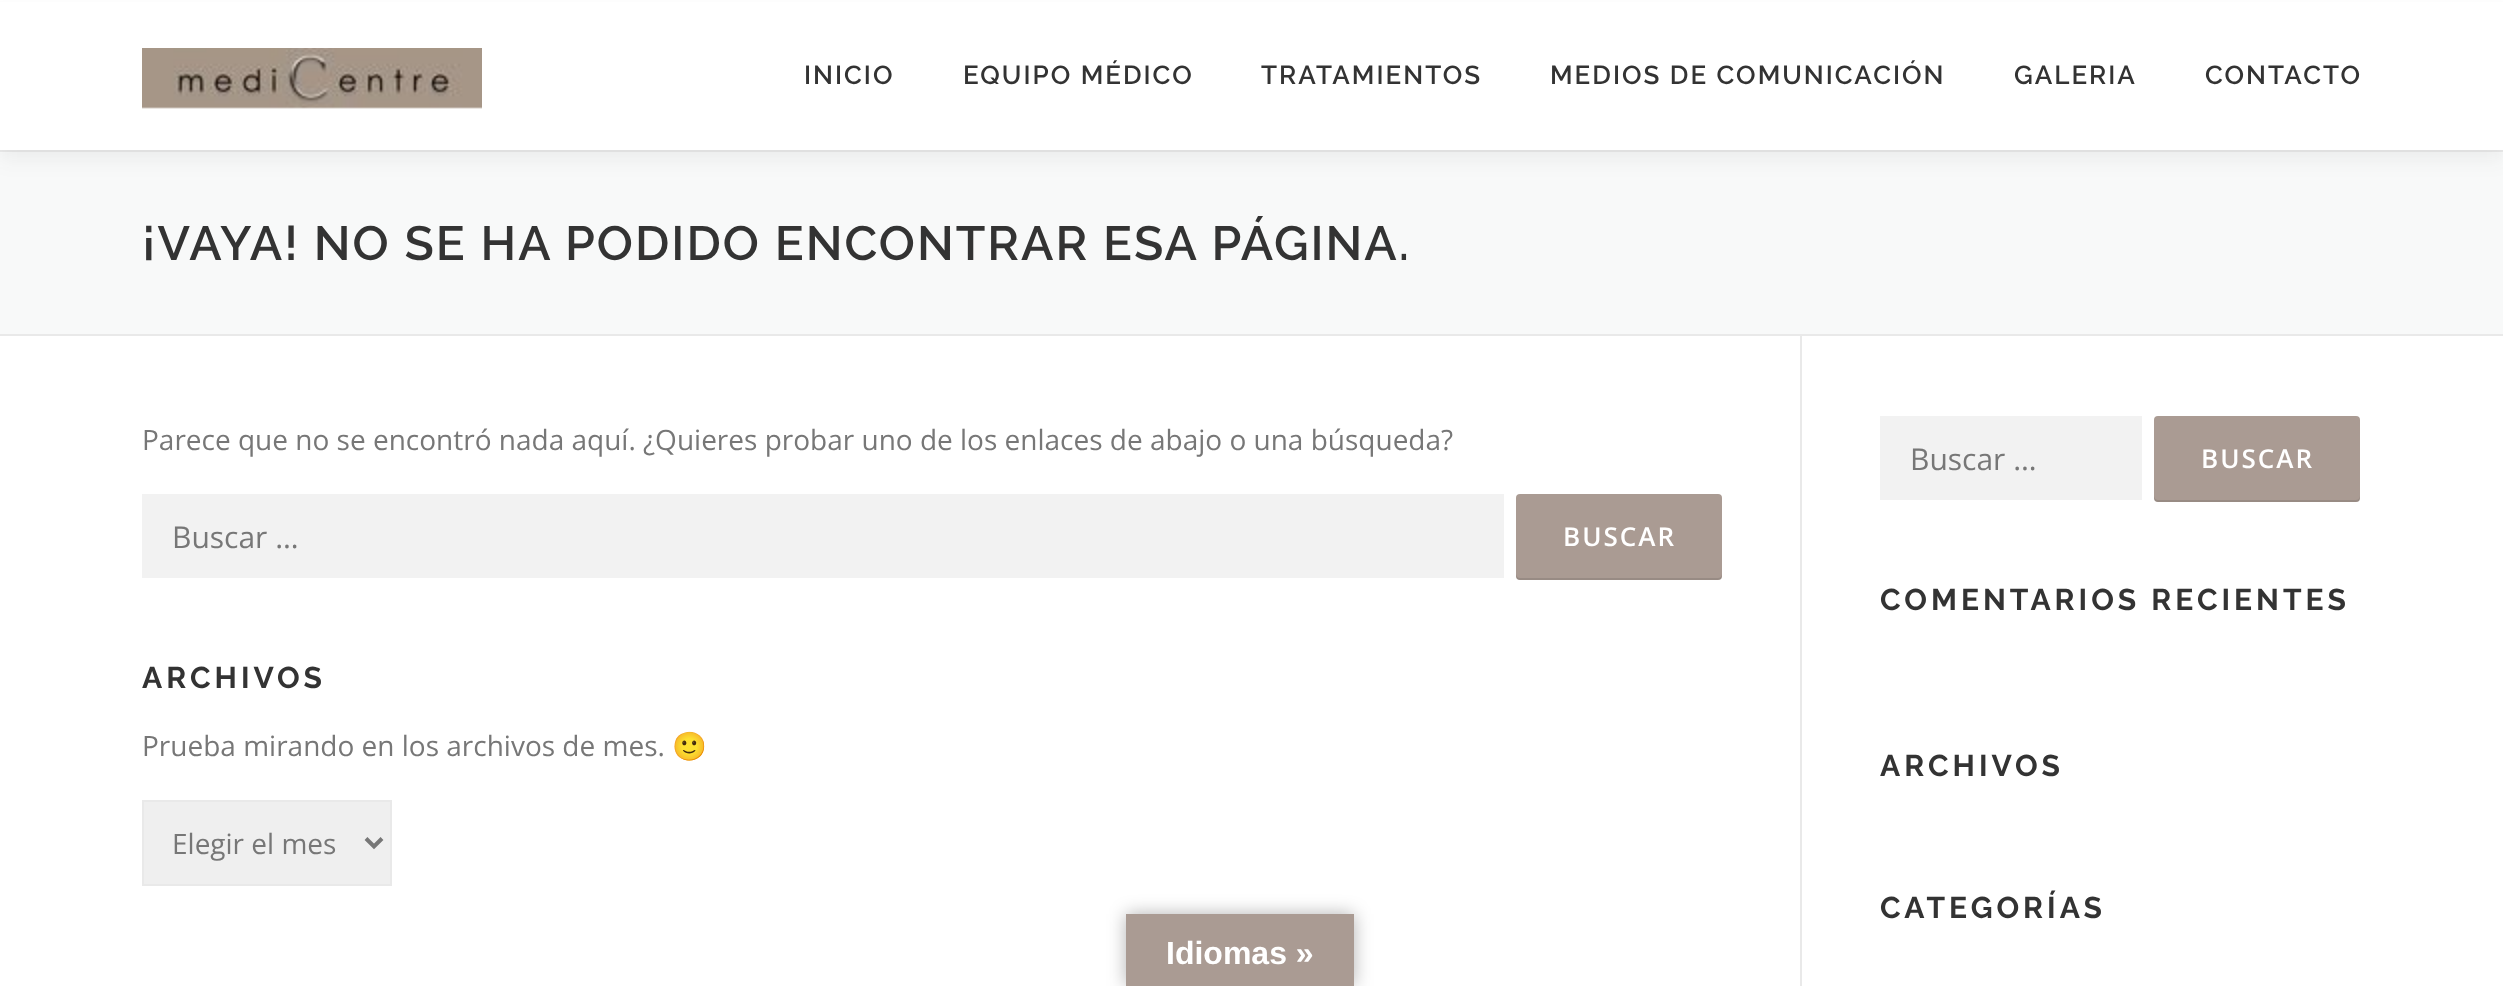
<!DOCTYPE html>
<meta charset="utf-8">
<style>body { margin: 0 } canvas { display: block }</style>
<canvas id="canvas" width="2503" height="986"></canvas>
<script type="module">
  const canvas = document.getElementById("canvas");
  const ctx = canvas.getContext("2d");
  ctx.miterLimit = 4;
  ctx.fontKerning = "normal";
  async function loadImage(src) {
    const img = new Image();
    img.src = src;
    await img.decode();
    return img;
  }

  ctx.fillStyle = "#ffffff";
  ctx.fillRect(0, 0, 2503, 986);
  ctx.fillStyle = "#f8f9f9";
  ctx.fillRect(0, 152, 2503, 182);
  ctx.fillStyle = "#e9e9e9";
  ctx.fillRect(0, 150, 2503, 2);
  ctx.fillStyle = "rgba(50, 50, 50, 0.06)";
  ctx.filter = "blur(10px)";
  ctx.beginPath();
  ctx.rect(0, 10, 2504, 150);
  ctx.fill();
  ctx.filter = "none";
  ctx.fillStyle = "#ffffff";
  ctx.fillRect(0, 2, 2503, 148);
  ctx.drawImage(await loadImage("img1.png"), 142, 48, 340, 61);
  ctx.letterSpacing = "2px";
  ctx.font = "600 26px Raleway";
  ctx.fillStyle = "#333333";
  ctx.fillText("INICIO", 804, 84);
  ctx.fillText("EQUIPO MÉDICO", 963, 84);
  ctx.fillText("TRATAMIENTOS", 1261, 84);
  ctx.fillText("MEDIOS DE COMUNICACIÓN", 1550, 84);
  ctx.fillText("GALERIA", 2014, 84);
  ctx.fillText("CONTACTO", 2205, 84);
  ctx.fillStyle = "#e9e9e9";
  ctx.fillRect(0, 334, 2503, 2);
  ctx.font = "600 48px Raleway";
  ctx.fillStyle = "#333333";
  ctx.fillText("¡VAYA! NO SE HA PODIDO ENCONTRAR ESA PÁGINA.", 142, 260);
  ctx.fillStyle = "#e9e9e9";
  ctx.fillRect(1800, 336, 2, 650);
  ctx.letterSpacing = "0px";
  ctx.font = "28px Open Sans";
  ctx.fillStyle = "#777777";
  ctx.fillText("Parece que no se encontró nada aquí. ¿Quieres probar uno de los enlaces de abajo o una búsqueda?", 142, 450);
  ctx.fillStyle = "#f2f2f2";
  ctx.fillRect(142, 494, 1362, 84);
  ctx.font = "30px Open Sans";
  ctx.fillStyle = "#777777";
  ctx.fillText("Buscar …", 172, 548);
  ctx.fillStyle = "#aa9b93";
  ctx.beginPath();
  ctx.roundRect(1516, 494, 206, 86, 4);
  ctx.fill();
  ctx.fillStyle = "rgba(0, 0, 0, 0.1)";
  ctx.beginPath();
  ctx.moveTo(1516, 574);
  ctx.bezierCurveTo(1516, 577, 1516, 579, 1519, 580);
  ctx.lineTo(1718, 580);
  ctx.bezierCurveTo(1722, 580, 1722, 577, 1722, 574);
  ctx.bezierCurveTo(1722, 576, 1720, 578, 1718, 578);
  ctx.lineTo(1520, 578);
  ctx.bezierCurveTo(1518, 578, 1516, 576, 1516, 574);
  ctx.closePath();
  ctx.fill();
  ctx.letterSpacing = "2px";
  ctx.font = "600 26px Open Sans";
  ctx.fillStyle = "#ffffff";
  ctx.fillText("BUSCAR", 1563, 546);
  ctx.letterSpacing = "4px";
  ctx.font = "bold 30px Raleway";
  ctx.fillStyle = "#333333";
  ctx.fillText("ARCHIVOS", 142, 688);
  ctx.letterSpacing = "0px";
  ctx.font = "28px Open Sans";
  ctx.fillStyle = "#777777";
  ctx.fillText("Prueba mirando en los archivos de mes.", 142, 756);
  ctx.font = "28px Noto Color Emoji";
  ctx.fillText("🙂", 672, 756);
  ctx.fillStyle = "#efefef";
  ctx.beginPath();
  ctx.rect(143, 801, 248, 84);
  ctx.fill();
  ctx.strokeStyle = "#e9e9e9";
  ctx.lineWidth = 2;
  ctx.stroke();
  ctx.beginPath();
  ctx.moveTo(366, 838.5);
  ctx.lineTo(374, 846.5);
  ctx.lineTo(382, 838.5);
  ctx.strokeStyle = "#777777";
  ctx.lineWidth = 4;
  ctx.stroke();
  ctx.font = "28px Open Sans";
  ctx.fillStyle = "#777777";
  ctx.fillText("Elegir el mes", 172, 854);
  ctx.fillStyle = "#f2f2f2";
  ctx.fillRect(1880, 416, 262, 84);
  ctx.font = "30px Open Sans";
  ctx.fillStyle = "#777777";
  ctx.fillText("Buscar …", 1910, 470);
  ctx.fillStyle = "#aa9b93";
  ctx.beginPath();
  ctx.roundRect(2154, 416, 206, 86, 4);
  ctx.fill();
  ctx.fillStyle = "rgba(0, 0, 0, 0.1)";
  ctx.beginPath();
  ctx.moveTo(2154, 496);
  ctx.bezierCurveTo(2154, 499, 2154, 501, 2157, 502);
  ctx.lineTo(2356, 502);
  ctx.bezierCurveTo(2360, 502, 2360, 499, 2360, 496);
  ctx.bezierCurveTo(2360, 498, 2358, 500, 2356, 500);
  ctx.lineTo(2158, 500);
  ctx.bezierCurveTo(2156, 500, 2154, 498, 2154, 496);
  ctx.closePath();
  ctx.fill();
  ctx.letterSpacing = "2px";
  ctx.font = "600 26px Open Sans";
  ctx.fillStyle = "#ffffff";
  ctx.fillText("BUSCAR", 2201, 468);
  ctx.letterSpacing = "4px";
  ctx.font = "bold 30px Raleway";
  ctx.fillStyle = "#333333";
  ctx.fillText("COMENTARIOS RECIENTES", 1880, 610);
  ctx.fillText("ARCHIVOS", 1880, 776);
  ctx.fillText("CATEGORÍAS", 1880, 918);
  ctx.fillStyle = "rgba(0, 0, 0, 0.3)";
  ctx.filter = "blur(9px)";
  ctx.beginPath();
  ctx.rect(1126, 914, 228, 72);
  ctx.fill();
  ctx.filter = "none";
  ctx.fillStyle = "#aa9b93";
  ctx.fillRect(1126, 914, 228, 72);
  ctx.letterSpacing = "0px";
  ctx.font = "bold 32px Liberation Sans";
  ctx.fillStyle = "#ffffff";
  ctx.fillText("Idiomas »", 1166, 964);
</script>
